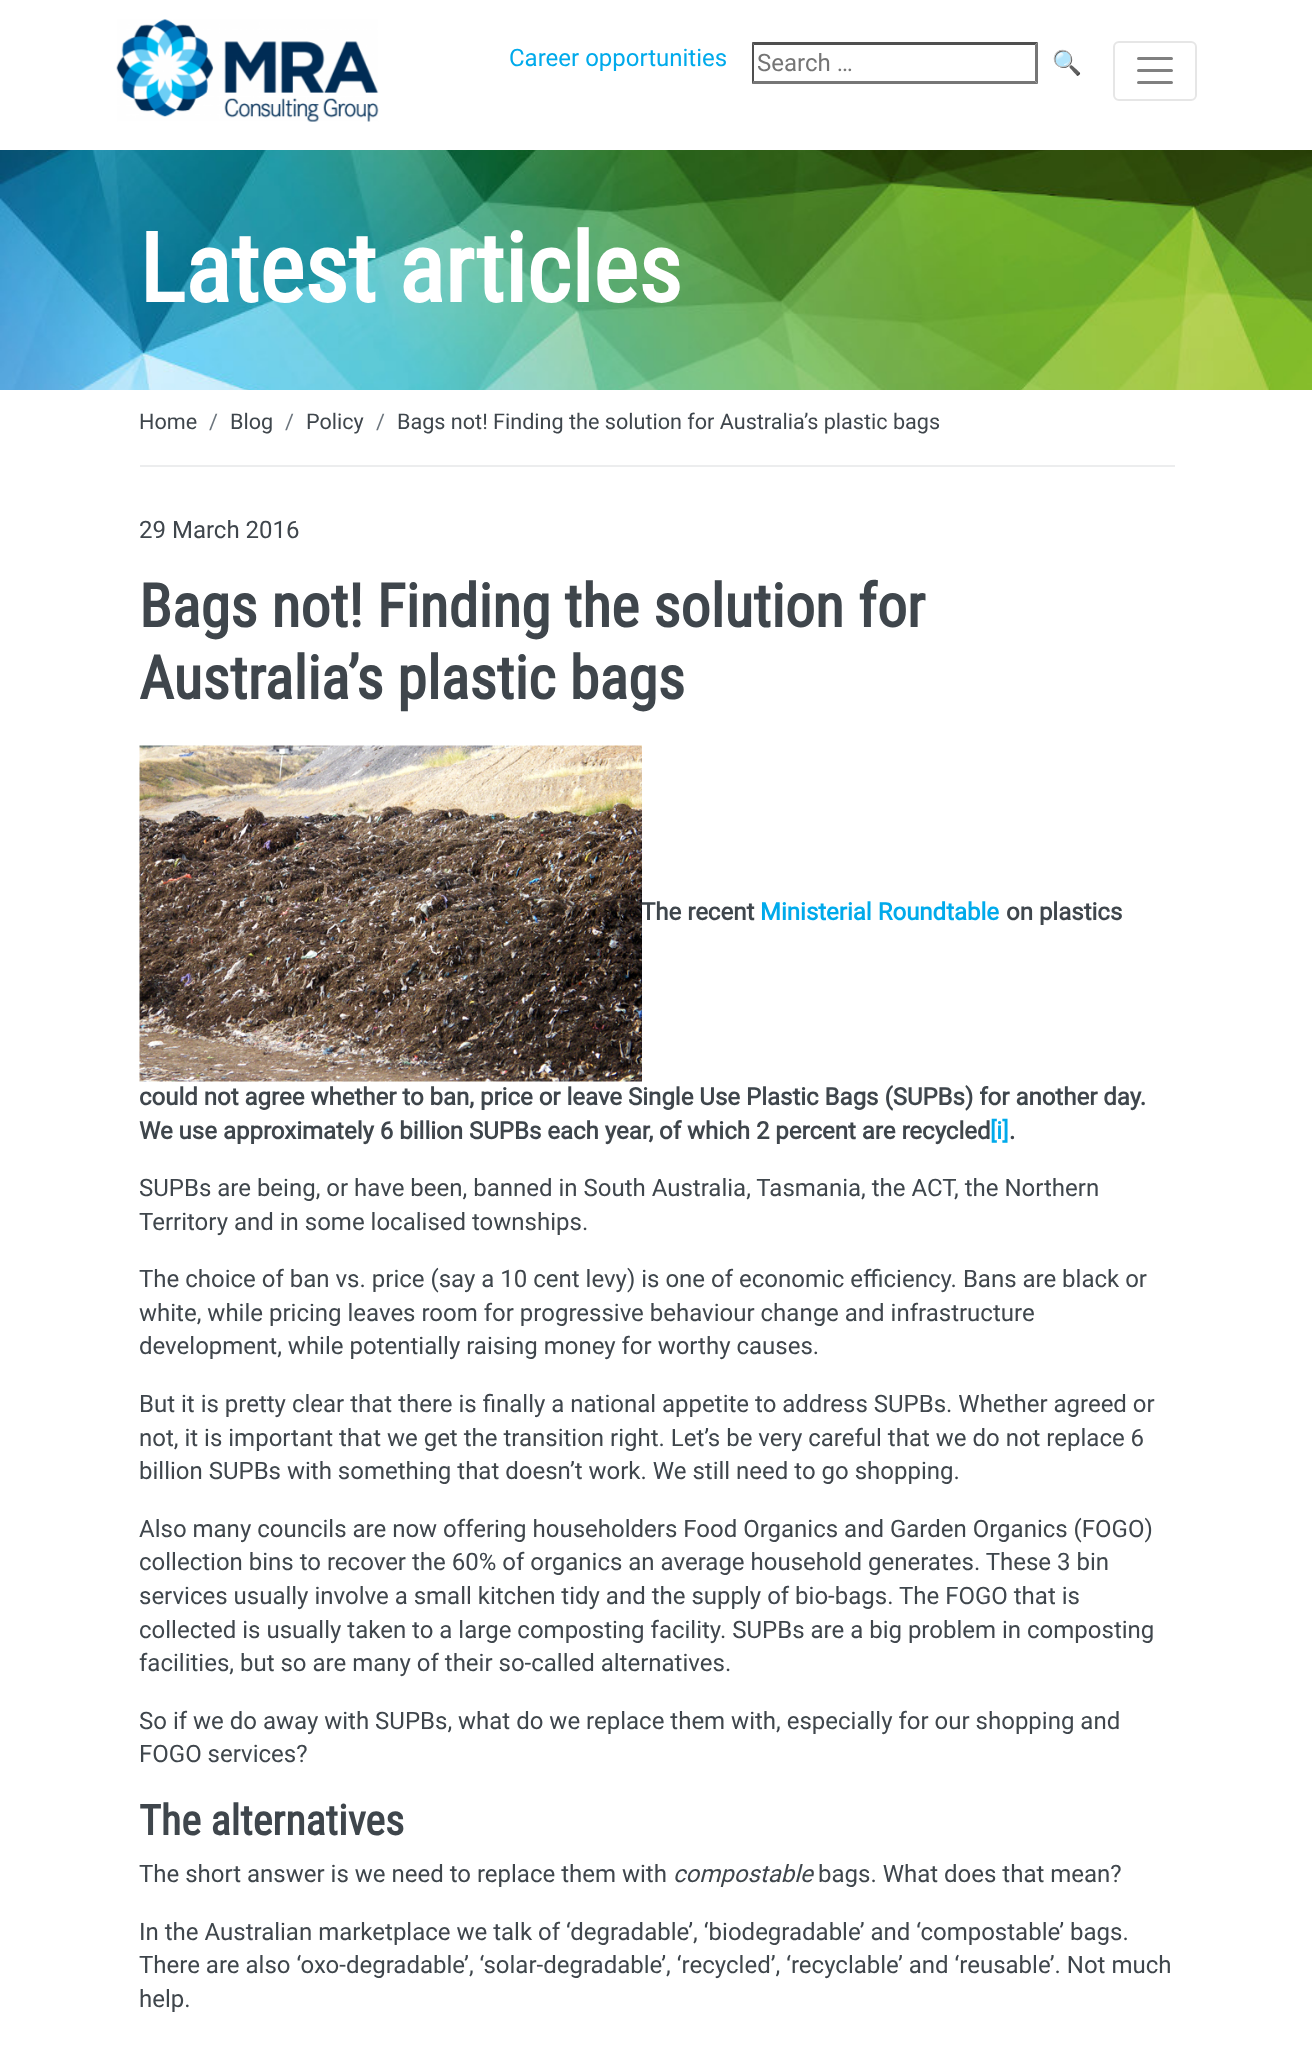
<!DOCTYPE html>
<meta charset="utf-8">
<style>body { margin: 0 } canvas { display: block }</style>
<canvas id="canvas" width="1312" height="2048"></canvas>
<script type="module">
  const canvas = document.getElementById("canvas");
  const ctx = canvas.getContext("2d");
  ctx.miterLimit = 4;
  ctx.fontKerning = "normal";
  async function loadImage(src) {
    const img = new Image();
    img.src = src;
    await img.decode();
    return img;
  }

  ctx.fillStyle = "#ffffff";
  ctx.fillRect(0, 0, 1312, 2048);
  ctx.drawImage(await loadImage("img1.png"), 116, 19, 263, 103);
  ctx.font = "24px Roboto";
  ctx.fillStyle = "#00aaeb";
  ctx.fillText("Career opportunities", 509, 66);
  ctx.fillStyle = "#4f4f4f";
  ctx.beginPath();
  ctx.moveTo(752, 42);
  ctx.lineTo(1038, 42);
  ctx.lineTo(1035, 45);
  ctx.lineTo(754, 45);
  ctx.closePath();
  ctx.fill();
  ctx.fillStyle = "#767676";
  ctx.beginPath();
  ctx.moveTo(1038, 42);
  ctx.lineTo(1038, 84);
  ctx.lineTo(1035, 81);
  ctx.lineTo(1035, 45);
  ctx.closePath();
  ctx.fill();
  ctx.beginPath();
  ctx.moveTo(1038, 84);
  ctx.lineTo(752, 84);
  ctx.lineTo(754, 81);
  ctx.lineTo(1035, 81);
  ctx.closePath();
  ctx.fill();
  ctx.fillStyle = "#4f4f4f";
  ctx.beginPath();
  ctx.moveTo(752, 84);
  ctx.lineTo(752, 42);
  ctx.lineTo(754, 45);
  ctx.lineTo(754, 81);
  ctx.closePath();
  ctx.fill();
  ctx.fillStyle = "#757575";
  ctx.fillText("Search …", 757, 71);
  ctx.font = "24px Noto Color Emoji";
  ctx.fillStyle = "#000000";
  ctx.fillText("🔍", 1052, 71);
  ctx.beginPath();
  ctx.roundRect(1114, 42, 82, 58, 5);
  ctx.strokeStyle = "#e6e6e6";
  ctx.lineWidth = 2;
  ctx.stroke();
  ctx.beginPath();
  ctx.moveTo(1138.5, 58.5);
  ctx.lineTo(1171.5, 58.5);
  ctx.moveTo(1138.5, 70.5);
  ctx.lineTo(1171.5, 70.5);
  ctx.moveTo(1138.5, 82.5);
  ctx.lineTo(1171.5, 82.5);
  ctx.strokeStyle = "#808080";
  ctx.lineWidth = 3;
  ctx.lineCap = "round";
  ctx.stroke();
  ctx.drawImage(await loadImage("img2.png"), 0, 150, 1312, 240);
  ctx.font = "bold 96px Roboto Condensed";
  ctx.fillStyle = "#ffffff";
  ctx.fillText("Latest articles", 139, 302);
  ctx.fillStyle = "#ecedee";
  ctx.fillRect(140, 465, 1035, 2);
  ctx.font = "21.6px Roboto";
  ctx.fillStyle = "#3f464c";
  ctx.fillText("Home", 139, 429);
  ctx.fillStyle = "#6c757d";
  ctx.fillText("/", 209, 429);
  ctx.fillStyle = "#3f464c";
  ctx.fillText("Blog", 230, 429);
  ctx.fillStyle = "#6c757d";
  ctx.fillText("/", 285, 429);
  ctx.fillStyle = "#3f464c";
  ctx.fillText("Policy", 306, 429);
  ctx.fillStyle = "#6c757d";
  ctx.fillText("/", 376, 429);
  ctx.fillStyle = "#3f464c";
  ctx.fillText("Bags not! Finding the solution for Australia’s plastic bags", 397, 429);
  ctx.font = "24px Roboto";
  ctx.fillText("29 March 2016", 139, 538);
  ctx.font = "bold 60px Roboto Condensed";
  ctx.fillText("Bags not! Finding the solution for", 139, 627);
  ctx.fillText("Australia’s plastic bags", 139, 699);
  ctx.drawImage(await loadImage("img3.png"), 139, 745, 503, 337);
  ctx.font = "bold 24px Roboto";
  ctx.fillText("The recent", 641, 920);
  ctx.fillStyle = "#00aaeb";
  ctx.fillText("Ministerial Roundtable", 760, 920);
  ctx.fillStyle = "#3f464c";
  ctx.fillText("on plastics", 1006, 920);
  ctx.fillText("could not agree whether to ban, price or leave Single Use Plastic Bags (SUPBs) for another day.", 139, 1105);
  ctx.fillText("We use approximately 6 billion SUPBs each year, of which 2 percent are recycled", 139, 1139);
  ctx.fillStyle = "#00aaeb";
  ctx.fillText("[i]", 990, 1139);
  ctx.fillStyle = "#3f464c";
  ctx.fillText(".", 1009, 1139);
  ctx.font = "24px Roboto";
  ctx.fillText("SUPBs are being, or have been, banned in South Australia, Tasmania, the ACT, the Northern", 139, 1196);
  ctx.fillText("Territory and in some localised townships.", 139, 1230);
  ctx.fillText("The choice of ban vs. price (say a 10 cent levy) is one of economic efficiency. Bans are black or", 139, 1287);
  ctx.fillText("white, while pricing leaves room for progressive behaviour change and infrastructure", 139, 1321);
  ctx.fillText("development, while potentially raising money for worthy causes.", 139, 1354);
  ctx.fillText("But it is pretty clear that there is finally a national appetite to address SUPBs. Whether agreed or", 139, 1412);
  ctx.fillText("not, it is important that we get the transition right. Let’s be very careful that we do not replace 6", 139, 1446);
  ctx.fillText("billion SUPBs with something that doesn’t work. We still need to go shopping.", 139, 1479);
  ctx.fillText("Also many councils are now offering householders Food Organics and Garden Organics (FOGO)", 139, 1537);
  ctx.fillText("collection bins to recover the 60% of organics an average household generates. These 3 bin", 139, 1570);
  ctx.fillText("services usually involve a small kitchen tidy and the supply of bio-bags. The FOGO that is", 139, 1604);
  ctx.fillText("collected is usually taken to a large composting facility. SUPBs are a big problem in composting", 139, 1638);
  ctx.fillText("facilities, but so are many of their so-called alternatives.", 139, 1671);
  ctx.fillText("So if we do away with SUPBs, what do we replace them with, especially for our shopping and", 139, 1729);
  ctx.fillText("FOGO services?", 139, 1762);
  ctx.font = "bold 42px Roboto Condensed";
  ctx.fillText("The alternatives", 139, 1835);
  ctx.font = "24px Roboto";
  ctx.fillText("The short answer is we need to replace them with", 139, 1882);
  ctx.font = "italic 24px Roboto";
  ctx.fillText("compostable", 673, 1882);
  ctx.font = "24px Roboto";
  ctx.fillText("bags. What does that mean?", 818, 1882);
  ctx.fillText("In the Australian marketplace we talk of ‘degradable’, ‘biodegradable’ and ‘compostable’ bags.", 139, 1940);
  ctx.fillText("There are also ‘oxo-degradable’, ‘solar-degradable’, ‘recycled’, ‘recyclable’ and ‘reusable’. Not much", 139, 1973);
  ctx.fillText("help.", 139, 2007);
</script>
